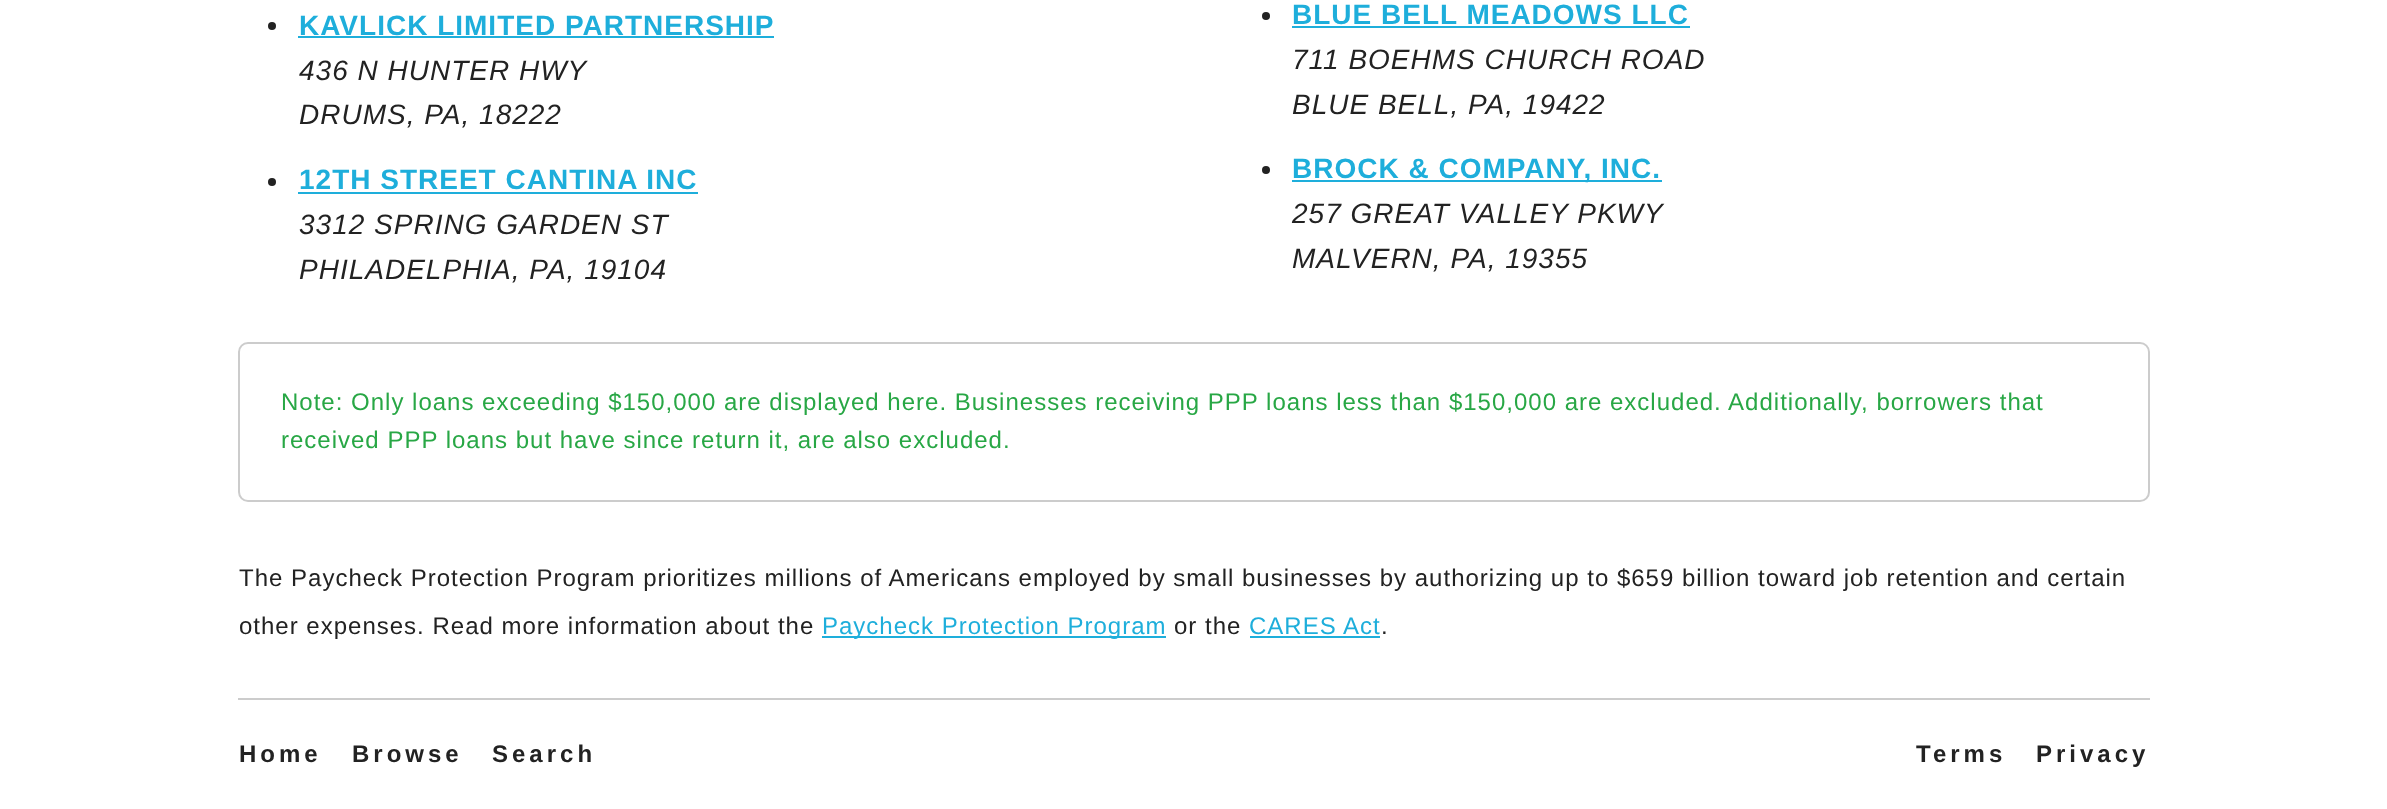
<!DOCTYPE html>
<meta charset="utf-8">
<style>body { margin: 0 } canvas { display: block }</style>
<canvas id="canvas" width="2387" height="809"></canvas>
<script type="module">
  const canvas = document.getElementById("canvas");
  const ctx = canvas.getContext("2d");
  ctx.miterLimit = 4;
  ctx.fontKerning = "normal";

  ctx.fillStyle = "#ffffff";
  ctx.fillRect(0, 0, 2387, 809);
  ctx.fillStyle = "#222222";
  ctx.beginPath();
  ctx.arc(272, 26, 4, 0, Math.PI * 2);
  ctx.fill();
  ctx.letterSpacing = "1px";
  ctx.font = "bold 28px Liberation Sans";
  ctx.fillStyle = "#1eaedb";
  ctx.fillText("KAVLICK LIMITED PARTNERSHIP", 299, 35);
  ctx.fillRect(298, 36, 476, 2);
  ctx.font = "italic 28px Liberation Sans";
  ctx.fillStyle = "#222222";
  ctx.fillText("436 N HUNTER HWY", 299, 80);
  ctx.fillText("DRUMS, PA, 18222", 299, 124);
  ctx.beginPath();
  ctx.arc(272, 182, 4, 0, Math.PI * 2);
  ctx.fill();
  ctx.font = "bold 28px Liberation Sans";
  ctx.fillStyle = "#1eaedb";
  ctx.fillText("12TH STREET CANTINA INC", 299, 189);
  ctx.fillRect(298, 192, 400, 2);
  ctx.font = "italic 28px Liberation Sans";
  ctx.fillStyle = "#222222";
  ctx.fillText("3312 SPRING GARDEN ST", 299, 234);
  ctx.fillText("PHILADELPHIA, PA, 19104", 299, 279);
  ctx.beginPath();
  ctx.arc(1266, 16, 4, 0, Math.PI * 2);
  ctx.fill();
  ctx.font = "bold 28px Liberation Sans";
  ctx.fillStyle = "#1eaedb";
  ctx.fillText("BLUE BELL MEADOWS LLC", 1292, 24);
  ctx.fillRect(1292, 26, 398, 2);
  ctx.font = "italic 28px Liberation Sans";
  ctx.fillStyle = "#222222";
  ctx.fillText("711 BOEHMS CHURCH ROAD", 1292, 69);
  ctx.fillText("BLUE BELL, PA, 19422", 1292, 114);
  ctx.beginPath();
  ctx.arc(1266, 170, 4, 0, Math.PI * 2);
  ctx.fill();
  ctx.fillStyle = "#1eaedb";
  ctx.fillRect(1292, 180, 370, 2);
  ctx.font = "bold 28px Liberation Sans";
  ctx.fillText("BROCK & COMPANY, INC.", 1292, 178);
  ctx.font = "italic 28px Liberation Sans";
  ctx.fillStyle = "#222222";
  ctx.fillText("257 GREAT VALLEY PKWY", 1292, 223);
  ctx.fillText("MALVERN, PA, 19355", 1292, 268);
  ctx.beginPath();
  ctx.roundRect(239, 343, 1910, 158, 9);
  ctx.strokeStyle = "#cccccc";
  ctx.lineWidth = 2;
  ctx.stroke();
  ctx.font = "24px Liberation Sans";
  ctx.fillStyle = "#28a745";
  ctx.fillText("Note: Only loans exceeding $150,000 are displayed here. Businesses receiving PPP loans less than $150,000 are excluded. Additionally, borrowers that", 281, 410);
  ctx.fillText("received PPP loans but have since return it, are also excluded.", 281, 448);
  ctx.fillStyle = "#222222";
  ctx.fillText("The Paycheck Protection Program prioritizes millions of Americans employed by small businesses by authorizing up to $659 billion toward job retention and certain", 239, 586);
  ctx.fillText("other expenses. Read more information about the", 239, 634);
  ctx.fillStyle = "#1eaedb";
  ctx.fillRect(822, 636, 344, 2);
  ctx.fillText("Paycheck Protection Program", 822, 634);
  ctx.fillStyle = "#222222";
  ctx.fillText("or the", 1174, 634);
  ctx.fillStyle = "#1eaedb";
  ctx.fillText("CARES Act", 1249, 634);
  ctx.fillStyle = "#222222";
  ctx.fillText(".", 1381, 634);
  ctx.fillStyle = "#1eaedb";
  ctx.fillRect(1250, 636, 130, 2);
  ctx.fillStyle = "#cccccc";
  ctx.fillRect(238, 698, 1912, 2);
  ctx.letterSpacing = "4px";
  ctx.font = "bold 24px Liberation Sans";
  ctx.fillStyle = "#222222";
  ctx.fillText("Home", 239, 762);
  ctx.fillText("Browse", 352, 762);
  ctx.fillText("Search", 492, 762);
  ctx.fillText("Terms", 1916, 762);
  ctx.fillText("Privacy", 2036, 762);
</script>
